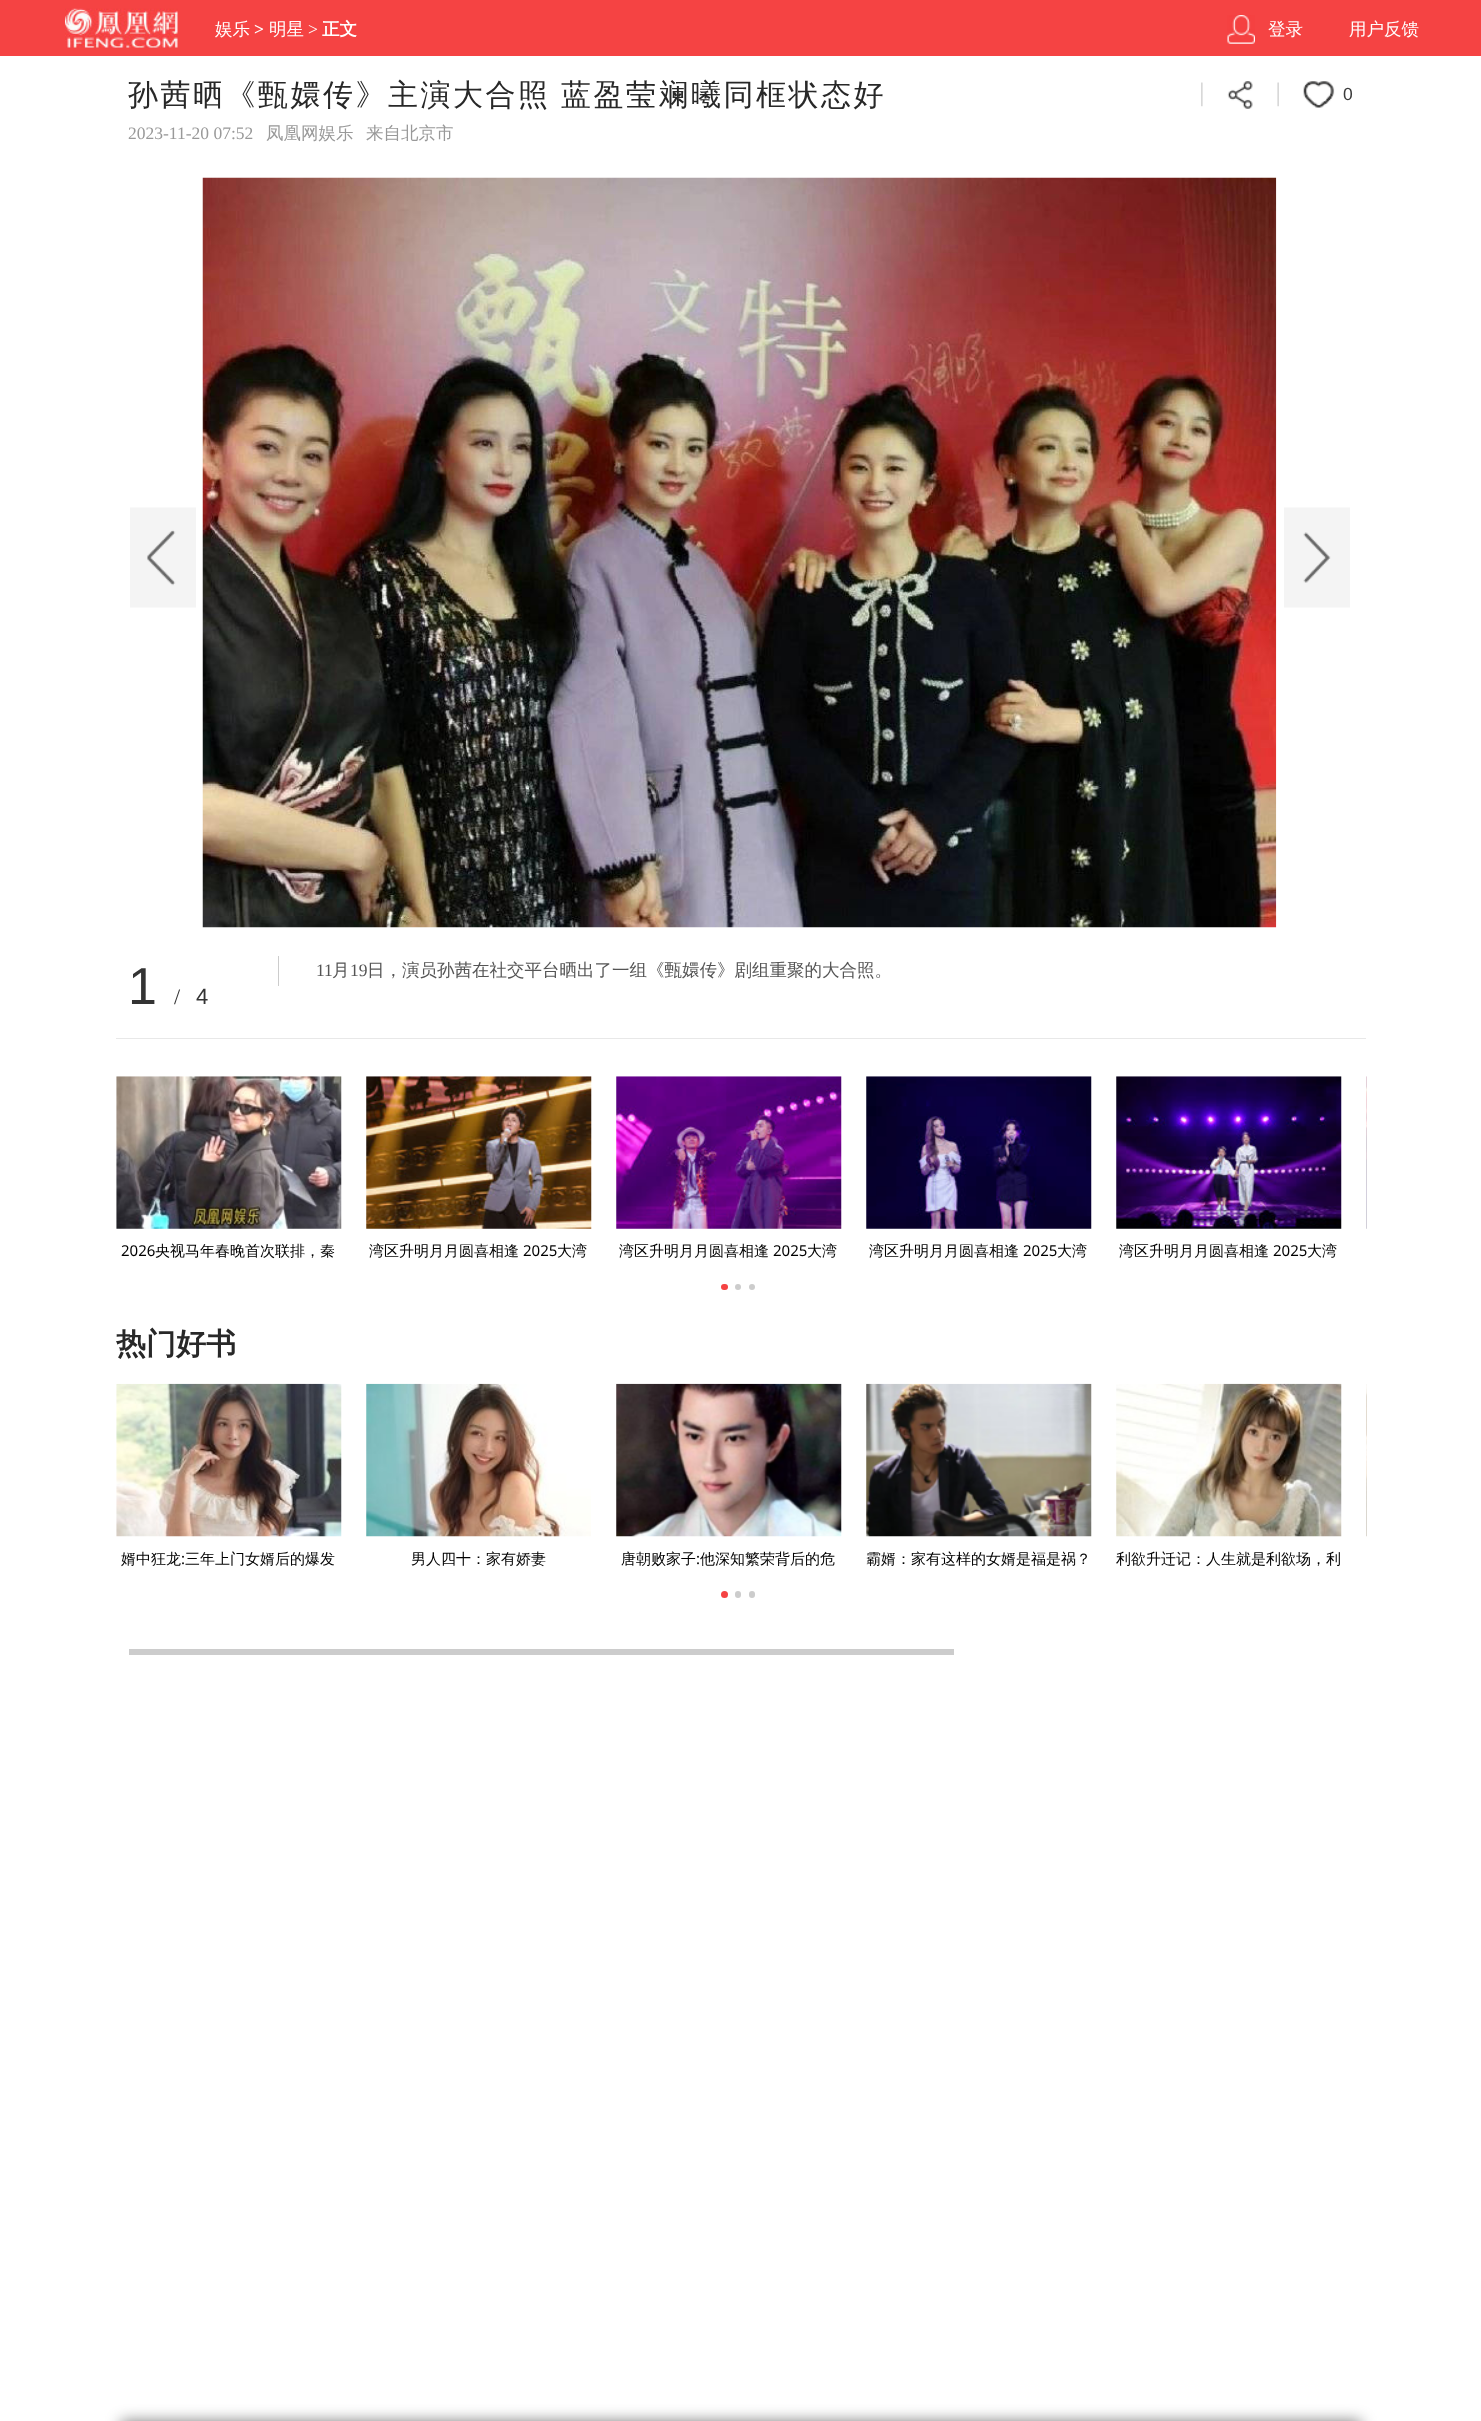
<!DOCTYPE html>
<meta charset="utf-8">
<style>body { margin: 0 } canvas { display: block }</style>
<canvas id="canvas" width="1481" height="2421"></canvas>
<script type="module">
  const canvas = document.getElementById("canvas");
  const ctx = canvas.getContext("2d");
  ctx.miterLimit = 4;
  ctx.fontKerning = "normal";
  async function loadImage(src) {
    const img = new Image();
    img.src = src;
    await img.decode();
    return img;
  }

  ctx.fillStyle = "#ffffff";
  ctx.fillRect(0, 0, 1481, 2421);
  ctx.fillStyle = "#f54343";
  ctx.fillRect(0, 0, 1481, 56);
  ctx.drawImage(await loadImage("img1.png"), 65, 8, 113, 40);
  ctx.font = "500 17.5px WenQuanYi Zen Hei";
  ctx.fillStyle = "#ffffff";
  ctx.fillText("娱乐", 215, 35);
  ctx.font = "bold 17.5px Liberation Serif";
  ctx.fillText(">", 254, 35);
  ctx.font = "500 17.5px WenQuanYi Zen Hei";
  ctx.fillText("明星", 269, 35);
  ctx.font = "17.5px Liberation Serif";
  ctx.fillText(">", 308, 35);
  ctx.font = "bold 17.5px WenQuanYi Zen Hei";
  ctx.fillText("正文", 322, 35);
  ctx.drawImage(await loadImage("img2.png"), 1227, 15, 28, 29);
  ctx.font = "500 17.5px WenQuanYi Zen Hei";
  ctx.fillText("登录", 1268, 35);
  ctx.fillText("用户反馈", 1349, 35);
  ctx.letterSpacing = "2.5px";
  ctx.wordSpacing = "-1px";
  ctx.font = "500 30px WenQuanYi Zen Hei";
  ctx.fillStyle = "#282828";
  ctx.fillText("孙茜晒《甄嬛传》主演大合照 蓝盈莹斓曦同框状态好", 128, 105);
  ctx.letterSpacing = "0px";
  ctx.wordSpacing = "0px";
  ctx.font = "17.5px Liberation Serif";
  ctx.fillStyle = "#999999";
  ctx.fillText("2023-11-20 07:52", 128, 139);
  ctx.font = "500 17.5px WenQuanYi Zen Hei";
  ctx.fillText("凤凰网娱乐", 266, 139);
  ctx.fillText("来自北京市", 366, 139);
  ctx.drawImage(await loadImage("img3.png"), 1201, 82, 2, 25);
  ctx.drawImage(await loadImage("img4.png"), 1227, 81, 26, 28);
  ctx.drawImage(await loadImage("img5.png"), 1277, 82, 2, 25);
  ctx.drawImage(await loadImage("img6.png"), 1303, 81, 32, 27);
  ctx.font = "17.5px Liberation Sans";
  ctx.fillStyle = "#3b3b3b";
  ctx.fillText("0", 1343, 100);
  ctx.drawImage(await loadImage("img7.png"), 130, 507, 66, 101);
  ctx.drawImage(await loadImage("img8.png"), 202, 177, 1075, 751);
  ctx.drawImage(await loadImage("img9.png"), 1284, 507, 66, 101);
  ctx.font = "52px Liberation Sans";
  ctx.fillStyle = "#333333";
  ctx.fillText("1", 128, 1004);
  ctx.font = "22px Liberation Serif";
  ctx.fillText("/", 174, 1004);
  ctx.font = "22px Liberation Sans";
  ctx.fillText("4", 196, 1004);
  ctx.fillStyle = "#cccccc";
  ctx.fillRect(278, 956, 1, 30);
  ctx.font = "17.5px Liberation Serif";
  ctx.fillStyle = "#555555";
  ctx.fillText("11", 316, 976);
  ctx.font = "500 17.5px WenQuanYi Zen Hei";
  ctx.fillText("月", 332, 976);
  ctx.font = "17.5px Liberation Serif";
  ctx.fillText("19", 350, 976);
  ctx.font = "500 17.5px WenQuanYi Zen Hei";
  ctx.fillText("日，演员孙茜在社交平台晒出了一组《甄嬛传》剧组重聚的大合照。", 367, 976);
  ctx.fillStyle = "#e8e8e8";
  ctx.fillRect(116, 1038, 1250, 1);
  ctx.drawImage(await loadImage("img10.png"), 1366, 1076, 1, 153);
  ctx.drawImage(await loadImage("img11.png"), 116, 1076, 226, 153);
  ctx.font = "15px Noto Sans";
  ctx.fillStyle = "#000000";
  ctx.fillText("2026", 121, 1256);
  ctx.font = "500 15px WenQuanYi Zen Hei";
  ctx.fillText("央视马年春晚首次联排，秦", 155, 1256);
  ctx.drawImage(await loadImage("img12.png"), 366, 1076, 226, 153);
  ctx.fillText("湾区升明月月圆喜相逢", 369, 1256);
  ctx.font = "15px Noto Sans";
  ctx.fillText("2025", 523, 1256);
  ctx.font = "500 15px WenQuanYi Zen Hei";
  ctx.fillText("大湾", 557, 1256);
  ctx.drawImage(await loadImage("img13.png"), 616, 1076, 226, 153);
  ctx.fillText("湾区升明月月圆喜相逢", 619, 1256);
  ctx.font = "15px Noto Sans";
  ctx.fillText("2025", 773, 1256);
  ctx.font = "500 15px WenQuanYi Zen Hei";
  ctx.fillText("大湾", 807, 1256);
  ctx.drawImage(await loadImage("img14.png"), 866, 1076, 226, 153);
  ctx.fillText("湾区升明月月圆喜相逢", 869, 1256);
  ctx.font = "15px Noto Sans";
  ctx.fillText("2025", 1023, 1256);
  ctx.font = "500 15px WenQuanYi Zen Hei";
  ctx.fillText("大湾", 1057, 1256);
  ctx.drawImage(await loadImage("img15.png"), 1116, 1076, 226, 153);
  ctx.fillText("湾区升明月月圆喜相逢", 1119, 1256);
  ctx.font = "15px Noto Sans";
  ctx.fillText("2025", 1273, 1256);
  ctx.font = "500 15px WenQuanYi Zen Hei";
  ctx.fillText("大湾", 1307, 1256);
  ctx.fillStyle = "#f54343";
  ctx.beginPath();
  ctx.roundRect(721, 1284, 7, 6, 3);
  ctx.fill();
  ctx.fillStyle = "#cccccc";
  ctx.beginPath();
  ctx.arc(738, 1287, 3, 0, Math.PI * 2);
  ctx.fill();
  ctx.beginPath();
  ctx.arc(752, 1287, 3, 0, Math.PI * 2);
  ctx.fill();
  ctx.font = "bold 30px WenQuanYi Zen Hei";
  ctx.fillStyle = "#282828";
  ctx.fillText("热门好书", 116, 1354);
  ctx.drawImage(await loadImage("img16.png"), 1366, 1384, 1, 153);
  ctx.drawImage(await loadImage("img17.png"), 116, 1383, 226, 154);
  ctx.font = "500 15px WenQuanYi Zen Hei";
  ctx.fillStyle = "#000000";
  ctx.fillText("婿中狂龙", 121, 1564);
  ctx.font = "15px Noto Sans";
  ctx.fillText(":", 181, 1564);
  ctx.font = "500 15px WenQuanYi Zen Hei";
  ctx.fillText("三年上门女婿后的爆发", 185, 1564);
  ctx.drawImage(await loadImage("img18.png"), 366, 1383, 225, 154);
  ctx.fillText("男人四十：家有娇妻", 411, 1564);
  ctx.drawImage(await loadImage("img19.png"), 616, 1383, 226, 154);
  ctx.fillText("唐朝败家子", 621, 1564);
  ctx.font = "15px Noto Sans";
  ctx.fillText(":", 696, 1564);
  ctx.font = "500 15px WenQuanYi Zen Hei";
  ctx.fillText("他深知繁荣背后的危", 700, 1564);
  ctx.drawImage(await loadImage("img20.png"), 866, 1383, 226, 154);
  ctx.fillText("霸婿：家有这样的女婿是福是祸？", 866, 1564);
  ctx.drawImage(await loadImage("img21.png"), 1116, 1383, 226, 154);
  ctx.fillText("利欲升迁记：人生就是利欲场，利", 1116, 1564);
  ctx.fillStyle = "#f54343";
  ctx.beginPath();
  ctx.arc(724.5, 1594.5, 3.5, 0, Math.PI * 2);
  ctx.fill();
  ctx.fillStyle = "#cccccc";
  ctx.beginPath();
  ctx.roundRect(735, 1591, 6, 7, 3);
  ctx.fill();
  ctx.beginPath();
  ctx.roundRect(749, 1591, 6, 7, 3);
  ctx.fill();
  ctx.fillRect(129, 1649, 825, 6);
  ctx.fillStyle = "rgba(0, 0, 0, 0.5)";
  ctx.filter = "blur(7.5px)";
  ctx.beginPath();
  ctx.roundRect(121, 2421, 1240, 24, 1);
  ctx.fill();
  ctx.filter = "none";
</script>
